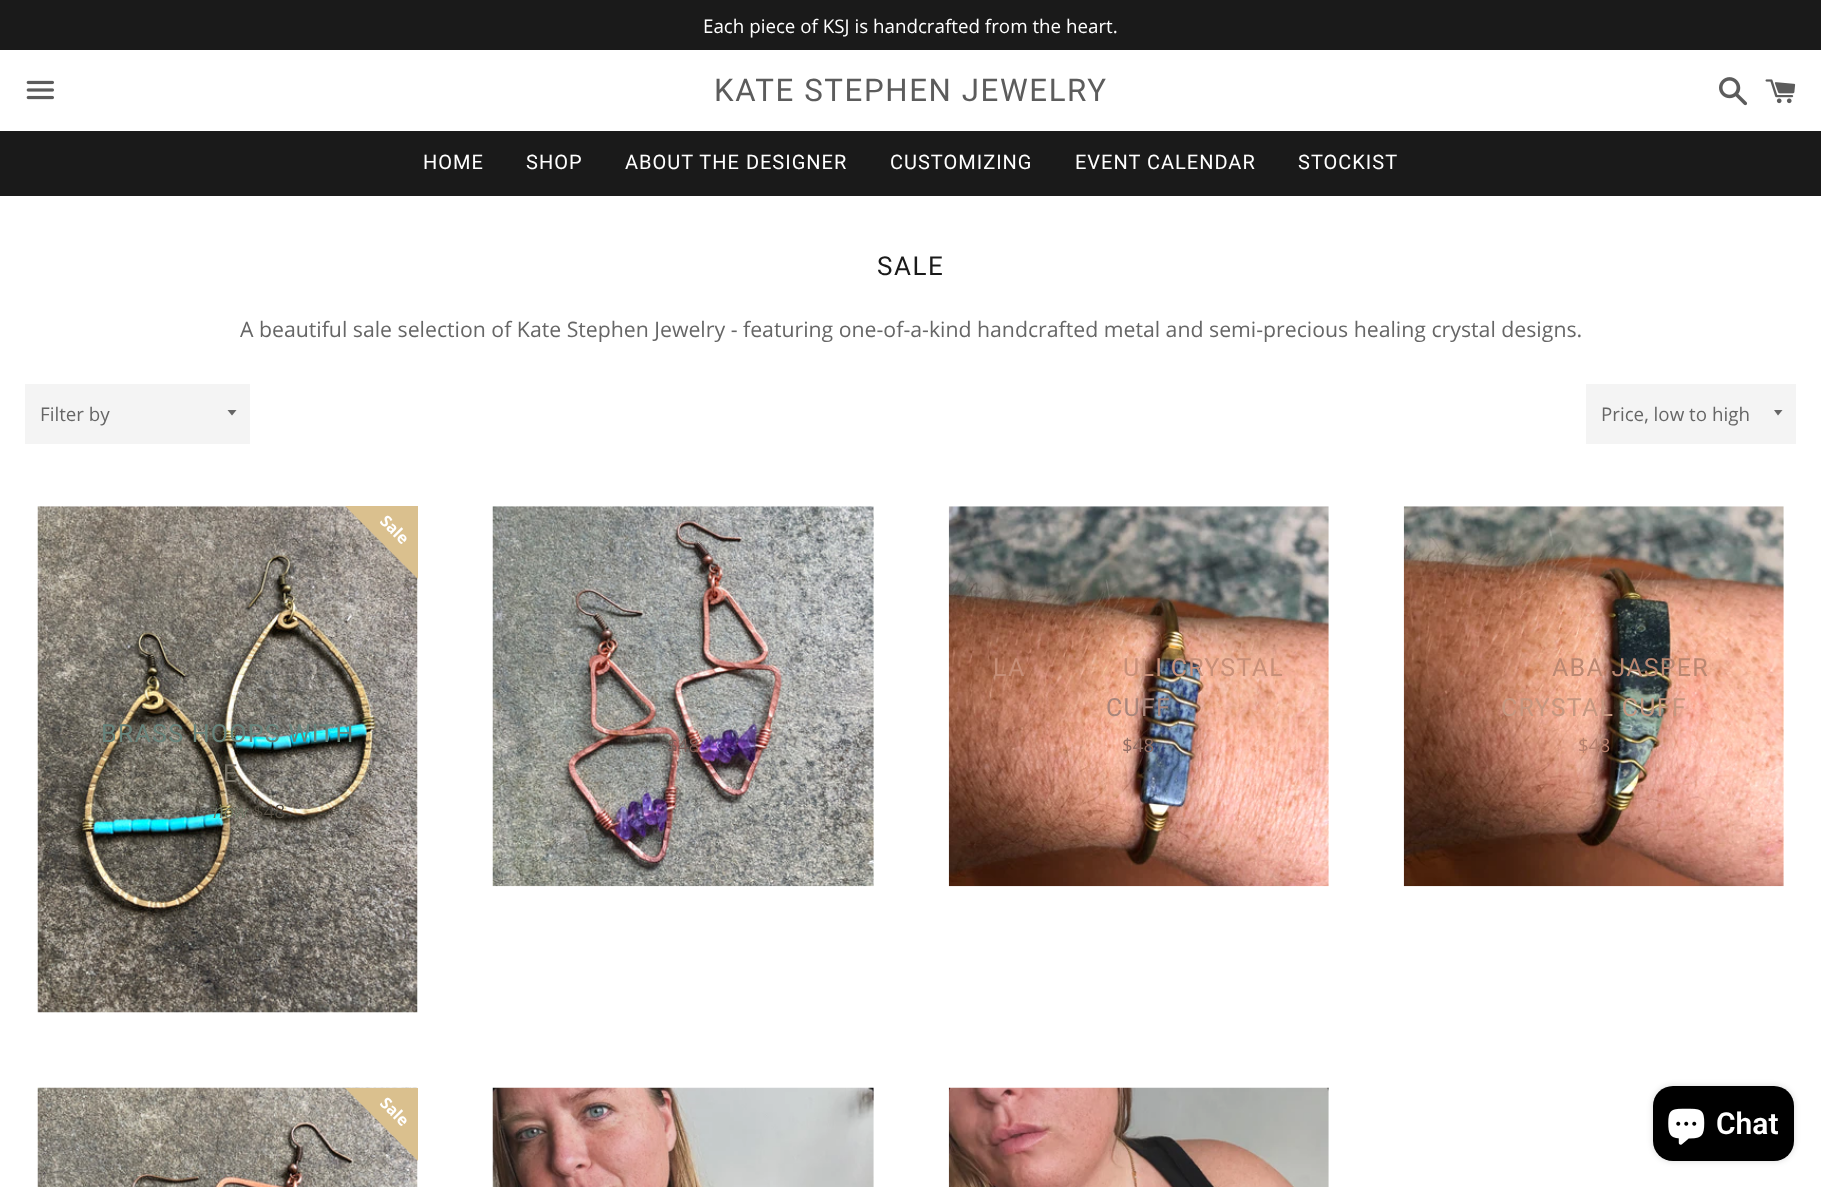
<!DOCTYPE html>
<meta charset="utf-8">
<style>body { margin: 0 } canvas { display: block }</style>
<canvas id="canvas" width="1821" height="1187"></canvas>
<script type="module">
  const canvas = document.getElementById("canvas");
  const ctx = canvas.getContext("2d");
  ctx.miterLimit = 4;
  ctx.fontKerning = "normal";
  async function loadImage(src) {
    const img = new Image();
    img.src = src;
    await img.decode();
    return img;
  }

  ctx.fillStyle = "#ffffff";
  ctx.fillRect(0, 0, 1821, 1187);
  ctx.fillStyle = "#1a1a1a";
  ctx.fillRect(0, 0, 1821, 50);
  ctx.font = "18.75px Open Sans";
  ctx.fillStyle = "#ffffff";
  ctx.fillText("Each piece of KSJ is handcrafted from the heart.", 703, 33);
  ctx.drawImage(await loadImage("img1.png"), 26, 80, 28, 20);
  ctx.letterSpacing = "1.6px";
  ctx.font = "31.25px Roboto";
  ctx.fillStyle = "#5c5c5c";
  ctx.fillText("KATE STEPHEN JEWELRY", 714, 101);
  ctx.drawImage(await loadImage("img2.png"), 1719, 77, 29, 29);
  ctx.drawImage(await loadImage("img3.png"), 1765, 79, 31, 25);
  ctx.fillStyle = "#1a1a1a";
  ctx.fillRect(0, 131, 1821, 65);
  ctx.letterSpacing = "1px";
  ctx.font = "20px Roboto";
  ctx.fillStyle = "#ffffff";
  ctx.fillText("HOME", 423, 169);
  ctx.fillText("SHOP", 526, 169);
  ctx.fillText("ABOUT THE DESIGNER", 625, 169);
  ctx.fillText("CUSTOMIZING", 890, 169);
  ctx.fillText("EVENT CALENDAR", 1075, 169);
  ctx.fillText("STOCKIST", 1298, 169);
  ctx.letterSpacing = "1.5px";
  ctx.font = "26px Roboto";
  ctx.fillStyle = "#1a1a1a";
  ctx.fillText("SALE", 877, 275);
  ctx.letterSpacing = "0px";
  ctx.font = "21.25px Open Sans";
  ctx.fillStyle = "#666666";
  ctx.fillText("A beautiful sale selection of Kate Stephen Jewelry - featuring one-of-a-kind handcrafted metal and semi-precious healing crystal designs.", 240, 337);
  ctx.fillStyle = "#f4f4f4";
  ctx.fillRect(25, 384, 225, 60);
  ctx.fillStyle = "#666666";
  ctx.beginPath();
  ctx.moveTo(227.5, 410);
  ctx.lineTo(232, 415.5);
  ctx.lineTo(236.5, 410);
  ctx.closePath();
  ctx.fill();
  ctx.font = "18.75px Open Sans";
  ctx.fillText("Filter by", 40, 421);
  ctx.fillStyle = "#f4f4f4";
  ctx.fillRect(1586, 384, 210, 60);
  ctx.fillStyle = "#666666";
  ctx.beginPath();
  ctx.moveTo(1774, 410);
  ctx.lineTo(1778, 415.5);
  ctx.lineTo(1782.5, 410);
  ctx.closePath();
  ctx.fill();
  ctx.fillText("Price, low to high", 1601, 421);
  ctx.drawImage(await loadImage("img4.png"), 37, 506, 381, 507);
  ctx.save();
  ctx.beginPath();
  ctx.rect(38, 506, 380, 507);
  ctx.clip();
  ctx.fillStyle = "#dac08e";
  ctx.beginPath();
  ctx.moveTo(351, 397);
  ctx.lineTo(527, 573);
  ctx.lineTo(470, 631);
  ctx.lineTo(293, 454);
  ctx.closePath();
  ctx.fill();
  ctx.restore();
  ctx.font = "bold 16px Open Sans";
  ctx.fillStyle = "#ffffff";
  ctx.save();
  ctx.translate(379, 522);
  ctx.rotate(45 * Math.PI / 180);
  ctx.fillText("Sale", 0, 0);
  ctx.restore();
  ctx.letterSpacing = "1.25px";
  ctx.font = "25px Roboto";
  ctx.fillStyle = "#67847c";
  ctx.fillText("BRASS HOOPS WITH", 101, 742);
  ctx.fillStyle = "#777267";
  ctx.fillText("E", 223, 782);
  ctx.letterSpacing = "0px";
  ctx.font = "italic 18.75px Open Sans";
  ctx.fillStyle = "#6f7766";
  ctx.fillText("now", 213, 818);
  ctx.font = "18.75px Open Sans";
  ctx.fillStyle = "#524c42";
  ctx.fillText("$48", 253, 818);
  ctx.drawImage(await loadImage("img5.png"), 492, 506, 382, 381);
  ctx.fillStyle = "#7b5d58";
  ctx.fillText("$48", 667, 752);
  ctx.drawImage(await loadImage("img6.png"), 948, 506, 381, 381);
  ctx.letterSpacing = "1.25px";
  ctx.font = "25px Roboto";
  ctx.fillStyle = "#c78f78";
  ctx.fillText("LA", 993, 676);
  ctx.fillText("ULI CRYSTAL", 1123, 676);
  ctx.fillStyle = "#a9857b";
  ctx.fillText("CUFF", 1106, 716);
  ctx.letterSpacing = "0px";
  ctx.font = "18.75px Open Sans";
  ctx.fillStyle = "#936e64";
  ctx.fillText("$48", 1122, 752);
  ctx.drawImage(await loadImage("img7.png"), 1403, 506, 381, 381);
  ctx.letterSpacing = "1.25px";
  ctx.font = "25px Roboto";
  ctx.fillStyle = "#ba8771";
  ctx.fillText("ABA JASPER", 1552, 676);
  ctx.fillStyle = "#c59780";
  ctx.fillText("CRYSTAL CUFF", 1501, 716);
  ctx.letterSpacing = "0px";
  ctx.font = "18.75px Open Sans";
  ctx.fillStyle = "#b6806e";
  ctx.fillText("$48", 1578, 752);
  ctx.drawImage(await loadImage("img8.png"), 37, 1087, 381, 100);
  ctx.save();
  ctx.beginPath();
  ctx.rect(38, 1088, 380, 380);
  ctx.clip();
  ctx.fillStyle = "#dac08e";
  ctx.beginPath();
  ctx.moveTo(351, 979);
  ctx.lineTo(527, 1156);
  ctx.lineTo(470, 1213);
  ctx.lineTo(293, 1036);
  ctx.closePath();
  ctx.fill();
  ctx.restore();
  ctx.font = "bold 16px Open Sans";
  ctx.fillStyle = "#ffffff";
  ctx.save();
  ctx.translate(379, 1104);
  ctx.rotate(45 * Math.PI / 180);
  ctx.fillText("Sale", 0, 0);
  ctx.restore();
  ctx.drawImage(await loadImage("img9.png"), 492, 1087, 382, 100);
  ctx.drawImage(await loadImage("img10.png"), 948, 1087, 381, 100);
  ctx.fillStyle = "rgba(0, 0, 0, 0.15)";
  ctx.filter = "blur(3px)";
  ctx.beginPath();
  ctx.roundRect(1653, 1086, 141, 75, 20);
  ctx.fill();
  ctx.filter = "none";
  ctx.fillStyle = "#000000";
  ctx.beginPath();
  ctx.roundRect(1653, 1086, 141, 75, 20);
  ctx.fill();
  ctx.drawImage(await loadImage("img11.png"), 1668, 1108, 37, 37);
  ctx.font = "600 30px Roboto";
  ctx.fillStyle = "#ffffff";
  ctx.fillText("Chat", 1716, 1134);
</script>
